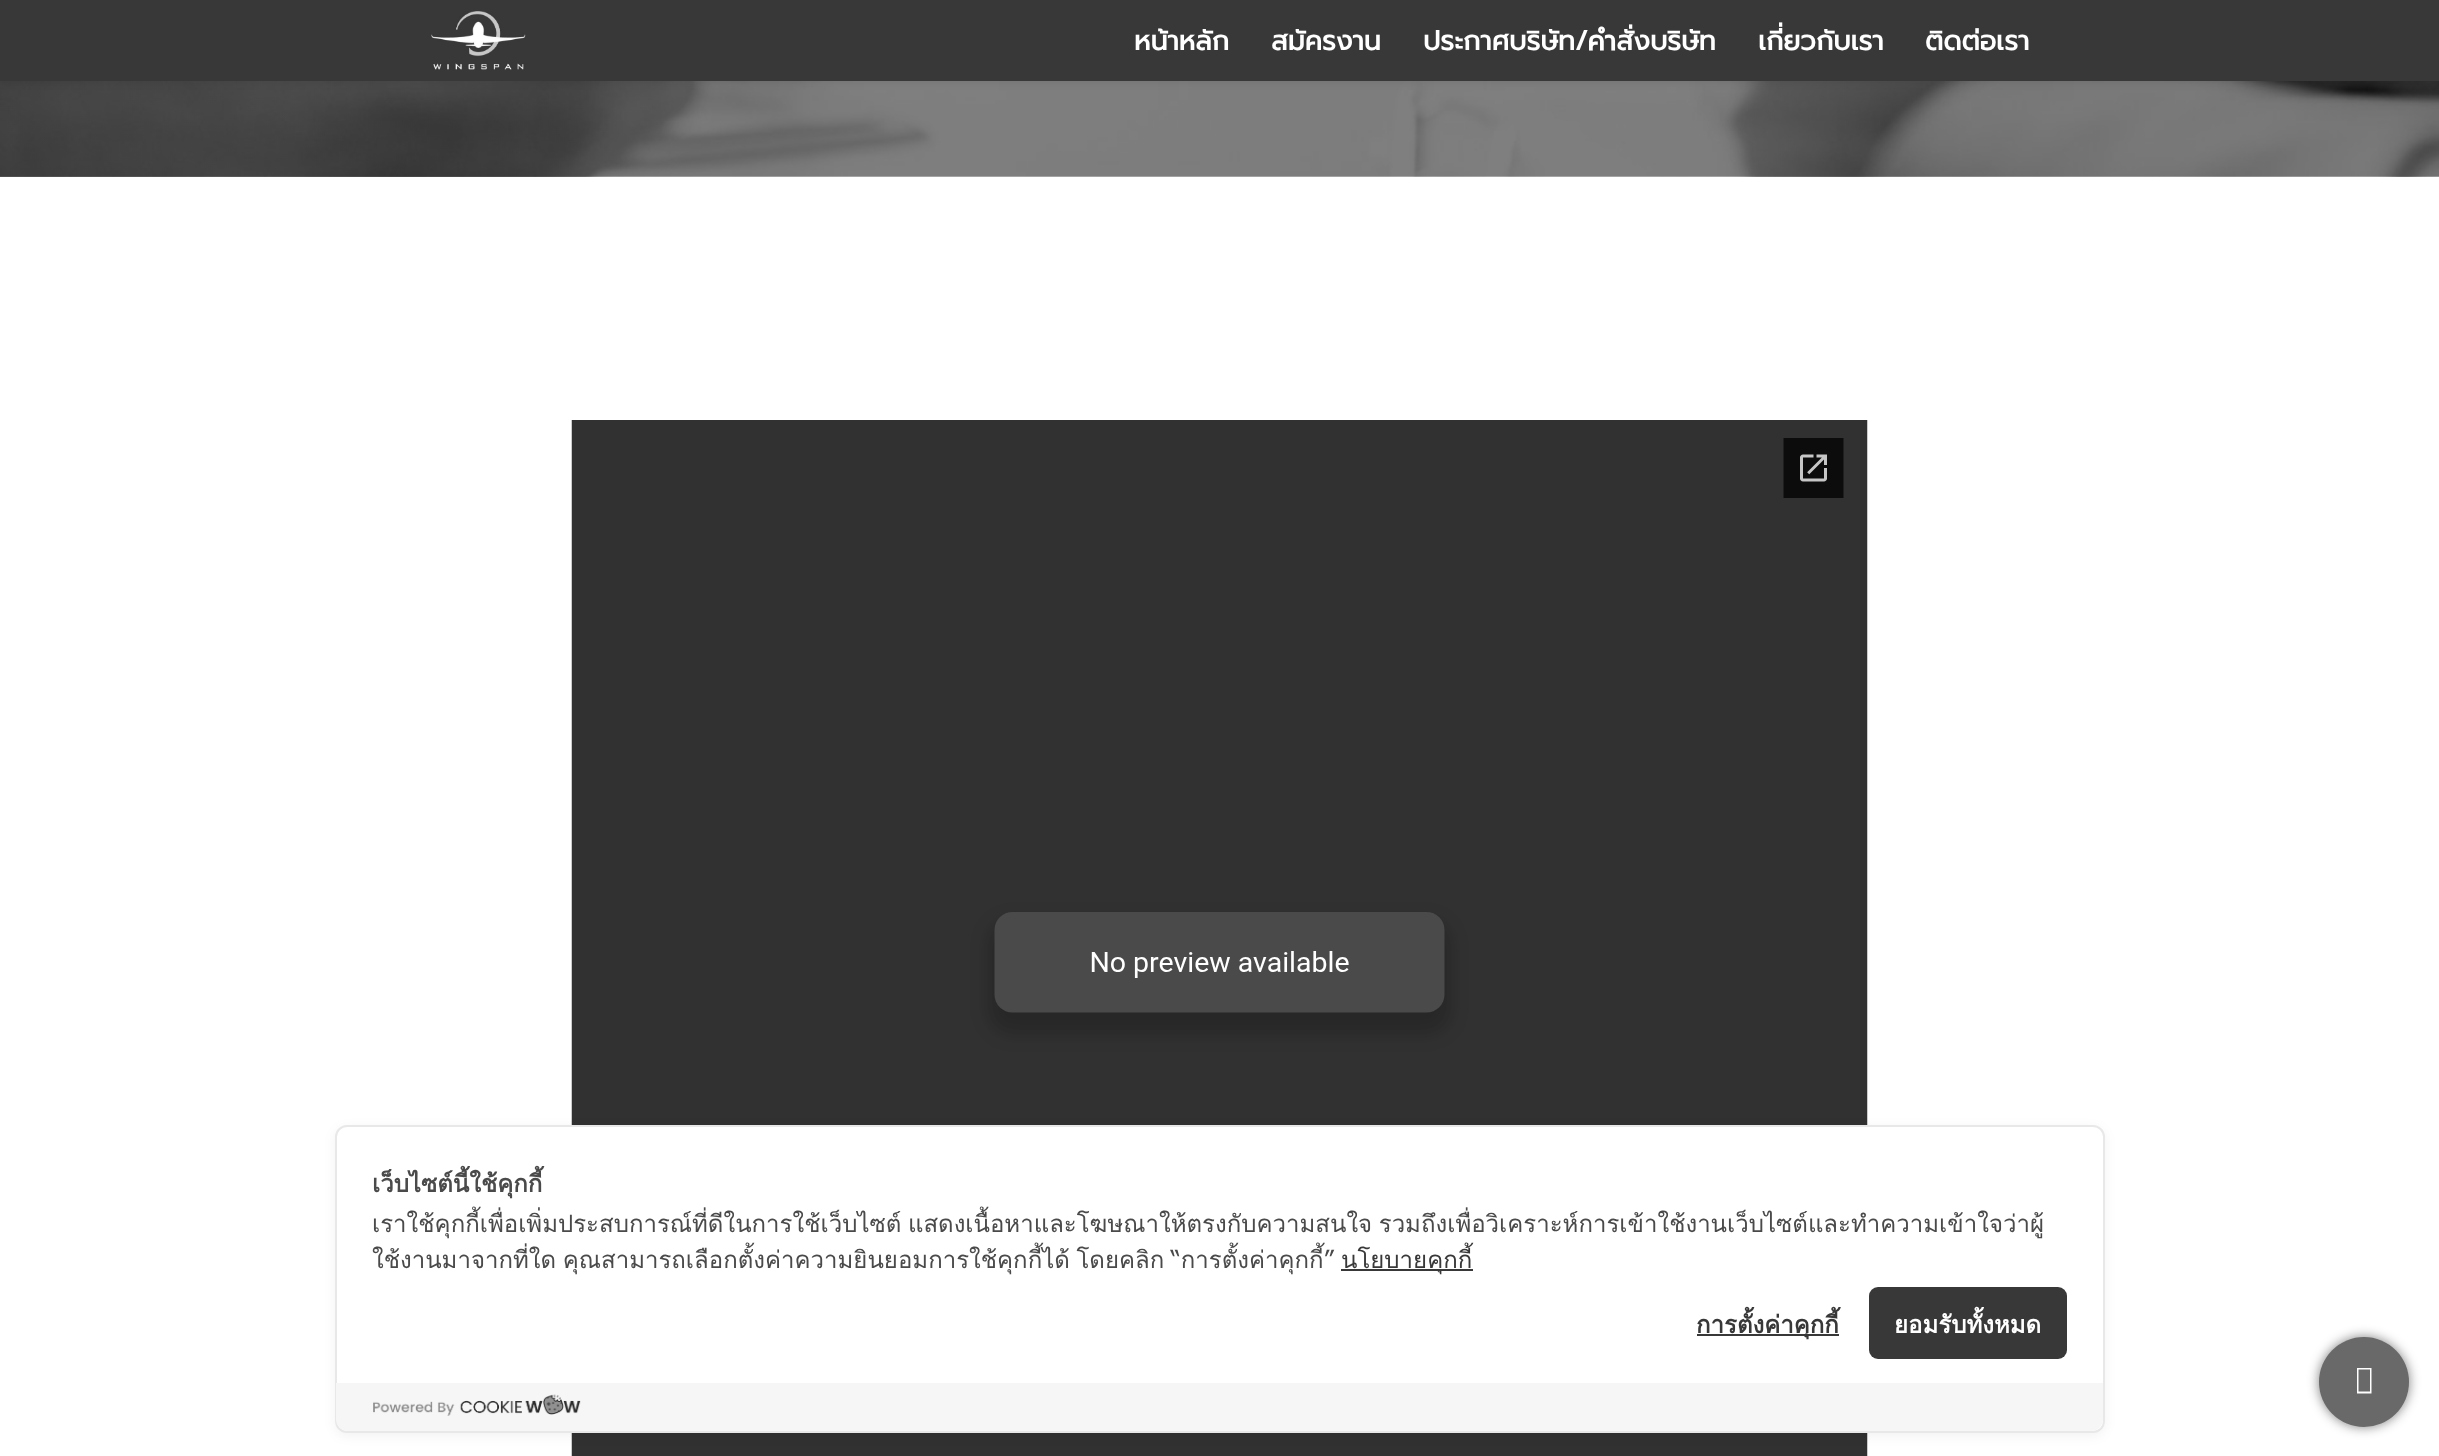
<!DOCTYPE html>
<meta charset="utf-8">
<style>body { margin: 0 } canvas { display: block }</style>
<canvas id="canvas" width="2439" height="1456"></canvas>
<script type="module">
  const canvas = document.getElementById("canvas");
  const ctx = canvas.getContext("2d");
  ctx.miterLimit = 4;
  ctx.fontKerning = "normal";
  async function loadImage(src) {
    const img = new Image();
    img.src = src;
    await img.decode();
    return img;
  }

  ctx.fillStyle = "#ffffff";
  ctx.fillRect(0, 0, 2439, 1456);
  ctx.drawImage(await loadImage("img2.png"), 0, 81, 2439, 96);
  ctx.fillStyle = "rgba(0, 0, 0, 0.1)";
  ctx.filter = "blur(5px)";
  ctx.beginPath();
  ctx.rect(0, 0, 2439, 81);
  ctx.fill();
  ctx.filter = "none";
  ctx.fillStyle = "#383838";
  ctx.fillRect(0, 0, 2439, 81);
  ctx.drawImage(await loadImage("img1.png"), 431, 11, 95, 59);
  ctx.font = "bold 27px Prompt";
  ctx.fillStyle = "#ffffff";
  ctx.fillText("หน้าหลัก", 1134, 50);
  ctx.fillText("สมัครงาน", 1271, 50);
  ctx.fillText("ประกาศบริษัท/คำสั่งบริษัท", 1423, 50);
  ctx.fillText("เกี่ยวกับเรา", 1758, 50);
  ctx.fillText("ติดต่อเรา", 1925, 50);
  ctx.drawImage(await loadImage("img3.png"), 571, 420, 1297, 1036);
  ctx.fillStyle = "rgba(0, 0, 0, 0.05)";
  ctx.filter = "blur(6px)";
  ctx.beginPath();
  ctx.roundRect(335, 1128, 1770, 308, 12);
  ctx.fill();
  ctx.filter = "none";
  ctx.fillStyle = "#ffffff";
  ctx.beginPath();
  ctx.roundRect(336, 1126, 1768, 306, 11);
  ctx.fill();
  ctx.strokeStyle = "#e8e8e8";
  ctx.lineWidth = 2;
  ctx.stroke();
  ctx.font = "bold 24px Loma";
  ctx.fillStyle = "#4a4a4a";
  ctx.fillText("เว็บไซต์นี้ใช้คุกกี้", 372, 1192);
  ctx.wordSpacing = "-1.5px";
  ctx.font = "24px Loma";
  ctx.fillText("เราใช้คุกกี้เพื่อเพิ่มประสบการณ์ที่ดีในการใช้เว็บไซต์ แสดงเนื้อหาและโฆษณาให้ตรงกับความสนใจ รวมถึงเพื่อวิเคราะห์การเข้าใช้งานเว็บไซต์และทำความเข้าใจว่าผู้", 372, 1232);
  ctx.fillText("ใช้งานมาจากที่ใด คุณสามารถเลือกตั้งค่าความยินยอมการใช้คุกกี้ได้ โดยคลิก “การตั้งค่าคุกกี้”", 372, 1268);
  ctx.fillStyle = "#383838";
  ctx.fillRect(1341, 1269, 132, 2);
  ctx.wordSpacing = "0px";
  ctx.fillText("นโยบายคุกกี้", 1341, 1268);
  ctx.fillRect(1697, 1334, 142, 2);
  ctx.font = "bold 24px Loma";
  ctx.fillText("การตั้งค่าคุกกี้", 1696, 1333);
  ctx.beginPath();
  ctx.roundRect(1869, 1287, 198, 72, 9);
  ctx.fill();
  ctx.fillStyle = "#ffffff";
  ctx.fillText("ยอมรับทั้งหมด", 1894, 1333);
  ctx.fillStyle = "#f6f6f6";
  ctx.beginPath();
  ctx.roundRect(336, 1383, 1767, 48, [0, 0, 12, 12]);
  ctx.fill();
  ctx.drawImage(await loadImage("img4.png"), 373, 1394, 208, 22);
  ctx.fillStyle = "rgba(0, 0, 0, 0.5)";
  ctx.filter = "blur(6px)";
  ctx.beginPath();
  ctx.roundRect(2319, 1337, 90, 90, 45);
  ctx.fill();
  ctx.filter = "none";
  ctx.fillStyle = "#696969";
  ctx.beginPath();
  ctx.arc(2364, 1382, 45, 0, Math.PI * 2);
  ctx.fill();
  ctx.fillStyle = "#ffffff";
  ctx.beginPath();
  ctx.moveTo(2357, 1393.5);
  ctx.lineTo(2357, 1368);
  ctx.lineTo(2371.5, 1368);
  ctx.lineTo(2371.5, 1393.5);
  ctx.closePath();
  ctx.moveTo(2358.5, 1391.5);
  ctx.lineTo(2370, 1391.5);
  ctx.lineTo(2370, 1369.5);
  ctx.lineTo(2358.5, 1369.5);
  ctx.closePath();
  ctx.fill();
</script>
